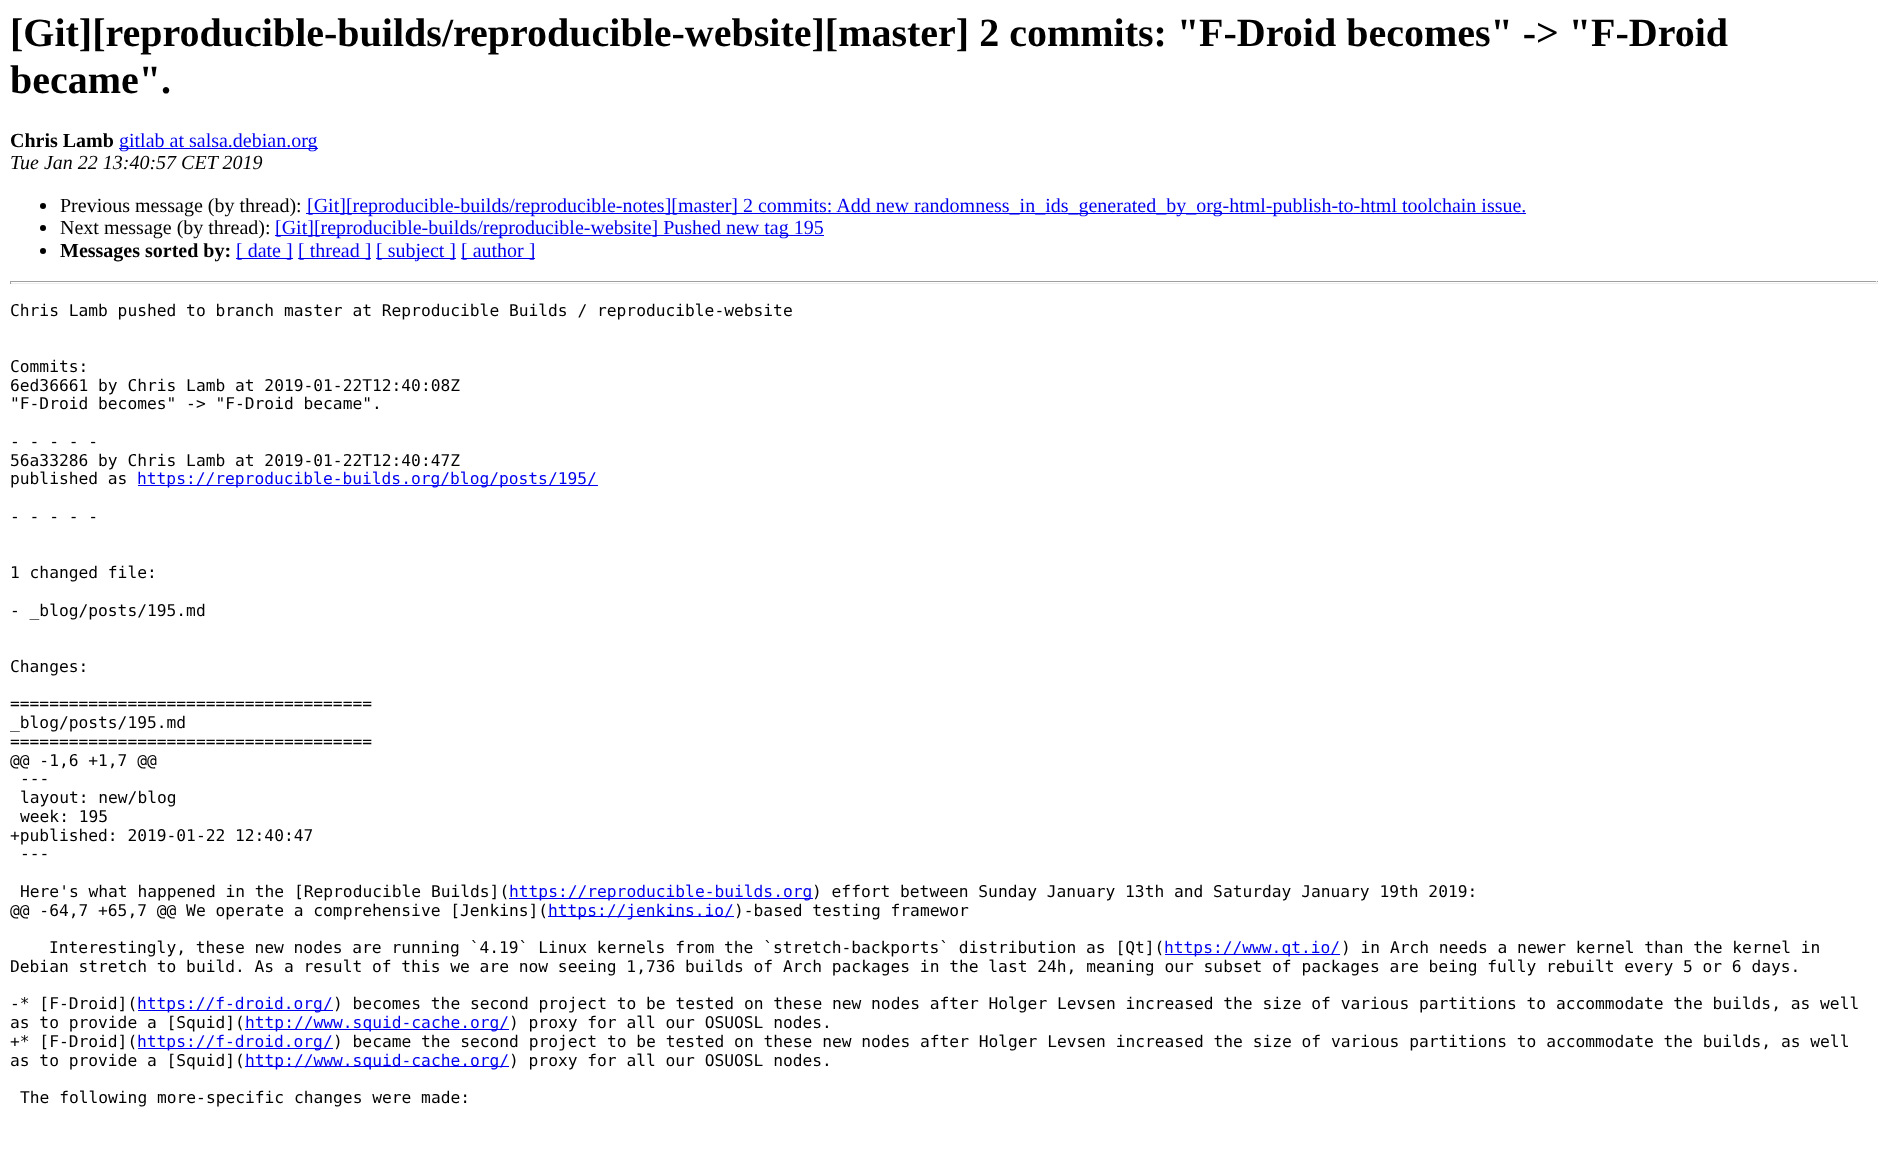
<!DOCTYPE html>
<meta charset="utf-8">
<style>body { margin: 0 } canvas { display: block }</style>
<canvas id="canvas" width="1887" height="1168"></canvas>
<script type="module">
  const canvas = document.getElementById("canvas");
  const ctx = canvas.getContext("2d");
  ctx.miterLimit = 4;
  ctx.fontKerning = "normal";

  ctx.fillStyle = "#ffffff";
  ctx.fillRect(0, 0, 1887, 1168);
  ctx.font = "bold 40px Liberation Serif";
  ctx.fillStyle = "#000000";
  ctx.fillText("[Git][reproducible-builds/reproducible-website][master] 2 commits: \"F-Droid becomes\" -> \"F-Droid", 10, 46);
  ctx.fillText("became\".", 10, 93);
  ctx.font = "bold 20px Liberation Serif";
  ctx.fillText("Chris Lamb", 10, 147);
  ctx.fillStyle = "#0000ee";
  ctx.fillRect(119, 148, 199, 1);
  ctx.font = "20px Liberation Serif";
  ctx.fillText("gitlab at salsa.debian.org", 119, 147);
  ctx.font = "italic 20px Liberation Serif";
  ctx.fillStyle = "#000000";
  ctx.fillText("Tue Jan 22 13:40:57 CET 2019", 10, 169);
  ctx.beginPath();
  ctx.arc(43, 206, 3, 0, Math.PI * 2);
  ctx.fill();
  ctx.font = "20px Liberation Serif";
  ctx.fillText("Previous message (by thread):", 60, 212);
  ctx.fillStyle = "#0000ee";
  ctx.fillRect(306, 213, 1220, 1);
  ctx.fillText("[Git][reproducible-builds/reproducible-notes][master] 2 commits: Add new randomness_in_ids_generated_by_org-html-publish-to-html toolchain issue.", 307, 212);
  ctx.fillStyle = "#000000";
  ctx.beginPath();
  ctx.arc(43, 228, 3, 0, Math.PI * 2);
  ctx.fill();
  ctx.fillText("Next message (by thread):", 60, 234);
  ctx.fillStyle = "#0000ee";
  ctx.fillRect(275, 235, 549, 1);
  ctx.fillText("[Git][reproducible-builds/reproducible-website] Pushed new tag 195", 275, 234);
  ctx.fillStyle = "#000000";
  ctx.beginPath();
  ctx.arc(43, 251, 3, 0, Math.PI * 2);
  ctx.fill();
  ctx.font = "bold 20px Liberation Serif";
  ctx.fillText("Messages sorted by:", 60, 257);
  ctx.fillStyle = "#0000ee";
  ctx.fillRect(236, 258, 57, 1);
  ctx.font = "20px Liberation Serif";
  ctx.fillText("[ date ]", 236, 257);
  ctx.fillRect(298, 258, 73, 1);
  ctx.fillText("[ thread ]", 298, 257);
  ctx.fillRect(376, 258, 80, 1);
  ctx.fillText("[ subject ]", 376, 257);
  ctx.fillRect(461, 258, 74, 1);
  ctx.fillText("[ author ]", 461, 257);
  ctx.fillStyle = "#9f9f9f";
  ctx.fillRect(10, 281, 1868, 1);
  ctx.fillStyle = "#eeeeee";
  ctx.fillRect(1876, 281, 1, 3);
  ctx.fillRect(10, 283, 1868, 1);
  ctx.fillStyle = "#9f9f9f";
  ctx.fillRect(10, 281, 1, 3);
  ctx.font = "16.25px DejaVu Sans Mono";
  ctx.fillStyle = "#000000";
  ctx.fillText("Chris Lamb pushed to branch master at Reproducible Builds / reproducible-website", 10, 316);
  ctx.fillText("Commits:", 10, 372);
  ctx.fillText("6ed36661 by Chris Lamb at 2019-01-22T12:40:08Z", 10, 391);
  ctx.fillText("\"F-Droid becomes\" -> \"F-Droid became\".", 10, 409);
  ctx.fillText("- - - - -", 10, 447);
  ctx.fillText("56a33286 by Chris Lamb at 2019-01-22T12:40:47Z", 10, 466);
  ctx.fillText("published as", 10, 484);
  ctx.fillStyle = "#0000ee";
  ctx.fillRect(138, 485, 460, 1);
  ctx.fillText("https://reproducible-builds.org/blog/posts/195/", 137, 484);
  ctx.fillStyle = "#000000";
  ctx.fillText("- - - - -", 10, 522);
  ctx.fillText("1 changed file:", 10, 578);
  ctx.fillText("- _blog/posts/195.md", 10, 616);
  ctx.fillText("Changes:", 10, 672);
  ctx.fillText("=====================================", 10, 709);
  ctx.fillText("_blog/posts/195.md", 10, 728);
  ctx.fillText("=====================================", 10, 747);
  ctx.fillText("@@ -1,6 +1,7 @@", 10, 766);
  ctx.fillText("---", 20, 784);
  ctx.fillText("layout: new/blog", 20, 803);
  ctx.fillText("week: 195", 20, 822);
  ctx.fillText("+published: 2019-01-22 12:40:47", 10, 841);
  ctx.fillText("---", 20, 859);
  ctx.fillText("Here's what happened in the [Reproducible Builds](", 20, 897);
  ctx.fillStyle = "#0000ee";
  ctx.fillRect(509, 898, 304, 1);
  ctx.fillText("https://reproducible-builds.org", 509, 897);
  ctx.fillStyle = "#000000";
  ctx.fillText(") effort between Sunday January 13th and Saturday January 19th 2019:", 812, 897);
  ctx.fillText("@@ -64,7 +65,7 @@ We operate a comprehensive [Jenkins](", 10, 916);
  ctx.fillStyle = "#0000ee";
  ctx.fillRect(548, 916, 186, 1);
  ctx.fillText("https://jenkins.io/", 548, 916);
  ctx.fillStyle = "#000000";
  ctx.fillText(")-based testing framewor", 734, 916);
  ctx.fillText("Interestingly, these new nodes are running `4.19` Linux kernels from the `stretch-backports` distribution as [Qt](", 49, 953);
  ctx.fillStyle = "#0000ee";
  ctx.fillRect(1165, 954, 175, 1);
  ctx.fillText("https://www.qt.io/", 1164, 953);
  ctx.fillStyle = "#000000";
  ctx.fillText(") in Arch needs a newer kernel than the kernel in", 1341, 953);
  ctx.fillText("Debian stretch to build. As a result of this we are now seeing 1,736 builds of Arch packages in the last 24h, meaning our subset of packages are being fully rebuilt every 5 or 6 days.", 10, 972);
  ctx.fillText("-* [F-Droid](", 10, 1009);
  ctx.fillStyle = "#0000ee";
  ctx.fillRect(138, 1010, 195, 1);
  ctx.fillText("https://f-droid.org/", 137, 1009);
  ctx.fillStyle = "#000000";
  ctx.fillText(") becomes the second project to be tested on these new nodes after Holger Levsen increased the size of various partitions to accommodate the builds, as well", 333, 1009);
  ctx.fillText("as to provide a [Squid](", 10, 1028);
  ctx.fillStyle = "#0000ee";
  ctx.fillRect(245, 1029, 264, 1);
  ctx.fillText("http://www.squid-cache.org/", 245, 1028);
  ctx.fillStyle = "#000000";
  ctx.fillText(") proxy for all our OSUOSL nodes.", 509, 1028);
  ctx.fillText("+* [F-Droid](", 10, 1047);
  ctx.fillStyle = "#0000ee";
  ctx.fillRect(138, 1048, 195, 1);
  ctx.fillText("https://f-droid.org/", 137, 1047);
  ctx.fillStyle = "#000000";
  ctx.fillText(") became the second project to be tested on these new nodes after Holger Levsen increased the size of various partitions to accommodate the builds, as well", 333, 1047);
  ctx.fillText("as to provide a [Squid](", 10, 1066);
  ctx.fillStyle = "#0000ee";
  ctx.fillRect(245, 1066, 264, 1);
  ctx.fillText("http://www.squid-cache.org/", 245, 1066);
  ctx.fillStyle = "#000000";
  ctx.fillText(") proxy for all our OSUOSL nodes.", 509, 1066);
  ctx.fillText("The following more-specific changes were made:", 20, 1103);
</script>
